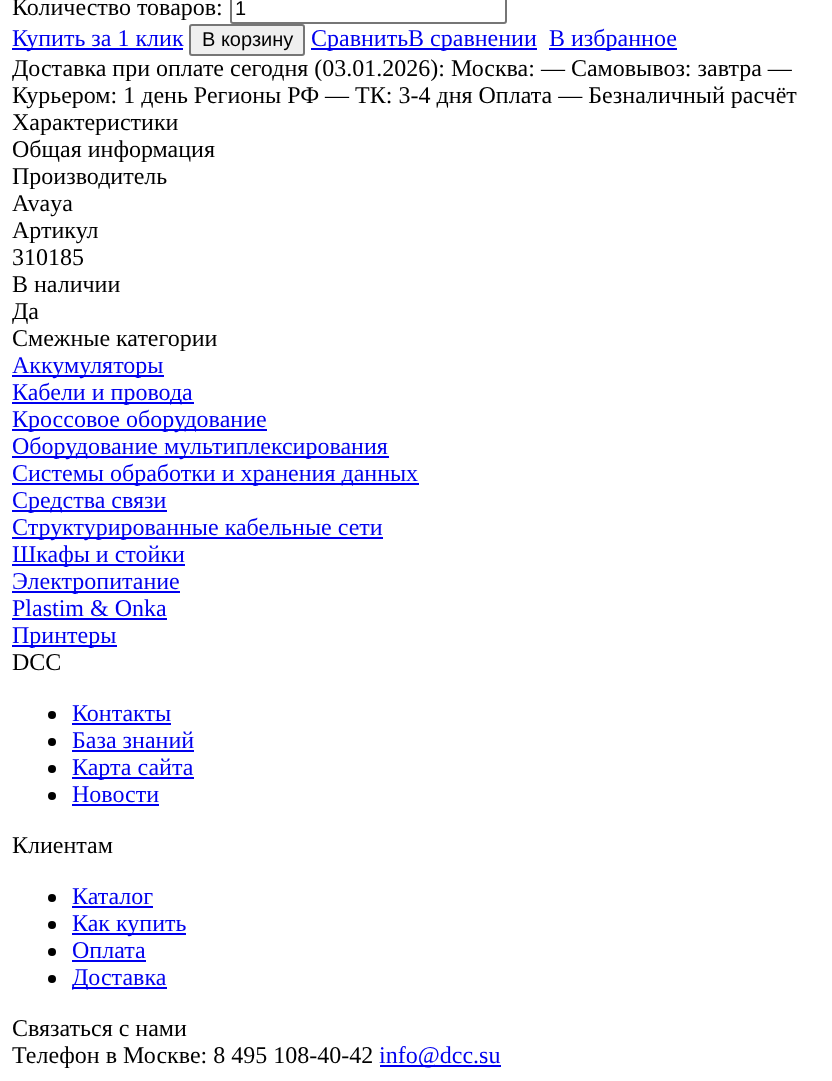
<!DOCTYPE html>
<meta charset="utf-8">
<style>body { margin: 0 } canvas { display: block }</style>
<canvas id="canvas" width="832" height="1081"></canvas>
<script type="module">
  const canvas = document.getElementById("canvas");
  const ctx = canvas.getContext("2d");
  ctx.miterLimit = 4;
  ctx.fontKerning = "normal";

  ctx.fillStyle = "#ffffff";
  ctx.fillRect(0, 0, 832, 1081);
  ctx.font = "24px Liberation Serif";
  ctx.fillStyle = "#000000";
  ctx.fillText("Количество товаров:", 12, 15);
  ctx.beginPath();
  ctx.roundRect(231, -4, 275, 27, 2);
  ctx.strokeStyle = "#767676";
  ctx.lineWidth = 2;
  ctx.stroke();
  ctx.font = "20px Liberation Sans";
  ctx.fillText("1", 235, 15);
  ctx.fillStyle = "#0000ee";
  ctx.fillRect(12, 48, 171, 2);
  ctx.font = "24px Liberation Serif";
  ctx.fillText("Купить за 1 клик", 12, 46);
  ctx.fillStyle = "#efefef";
  ctx.beginPath();
  ctx.roundRect(190, 25, 114, 30, 2);
  ctx.fill();
  ctx.stroke();
  ctx.font = "20px Liberation Sans";
  ctx.fillStyle = "#000000";
  ctx.fillText("В корзину", 202, 46);
  ctx.fillStyle = "#0000ee";
  ctx.fillRect(311, 48, 226, 2);
  ctx.font = "24px Liberation Serif";
  ctx.fillText("СравнитьВ сравнении", 311, 46);
  ctx.fillRect(549, 48, 128, 2);
  ctx.fillText("В избранное", 549, 46);
  ctx.fillStyle = "#000000";
  ctx.fillText("Доставка при оплате сегодня (03.01.2026): Москва: — Самовывоз: завтра —", 12, 76);
  ctx.fillText("Курьером: 1 день Регионы РФ — ТК: 3-4 дня Оплата — Безналичный расчёт", 12, 103);
  ctx.fillText("Характеристики", 12, 130);
  ctx.fillText("Общая информация", 12, 157);
  ctx.fillText("Производитель", 12, 184);
  ctx.fillText("Avaya", 12, 211);
  ctx.fillText("Артикул", 12, 238);
  ctx.fillText("310185", 12, 265);
  ctx.fillText("В наличии", 12, 292);
  ctx.fillText("Да", 12, 319);
  ctx.fillText("Смежные категории", 12, 346);
  ctx.fillStyle = "#0000ee";
  ctx.fillRect(12, 375, 152, 2);
  ctx.fillText("Аккумуляторы", 12, 373);
  ctx.fillRect(12, 402, 182, 2);
  ctx.fillText("Кабели и провода", 12, 400);
  ctx.fillRect(12, 429, 255, 2);
  ctx.fillText("Кроссовое оборудование", 12, 427);
  ctx.fillRect(12, 456, 377, 2);
  ctx.fillText("Оборудование мультиплексирования", 12, 454);
  ctx.fillRect(12, 483, 407, 2);
  ctx.fillText("Системы обработки и хранения данных", 12, 481);
  ctx.fillRect(12, 510, 155, 2);
  ctx.fillText("Средства связи", 12, 508);
  ctx.fillRect(12, 537, 371, 2);
  ctx.fillText("Структурированные кабельные сети", 12, 535);
  ctx.fillRect(12, 564, 173, 2);
  ctx.fillText("Шкафы и стойки", 12, 562);
  ctx.fillRect(12, 591, 168, 2);
  ctx.fillText("Электропитание", 12, 589);
  ctx.fillText("Plastim & Onka", 12, 616);
  ctx.fillRect(12, 618, 155, 2);
  ctx.fillRect(12, 645, 105, 2);
  ctx.fillText("Принтеры", 12, 643);
  ctx.fillStyle = "#000000";
  ctx.fillText("DCC", 12, 670);
  ctx.beginPath();
  ctx.arc(52, 715, 4, 0, Math.PI * 2);
  ctx.fill();
  ctx.fillStyle = "#0000ee";
  ctx.fillText("Контакты", 72, 721);
  ctx.fillRect(72, 723, 99, 2);
  ctx.fillStyle = "#000000";
  ctx.beginPath();
  ctx.arc(52, 742, 4, 0, Math.PI * 2);
  ctx.fill();
  ctx.fillStyle = "#0000ee";
  ctx.fillText("База знаний", 72, 748);
  ctx.fillRect(72, 750, 122, 2);
  ctx.fillStyle = "#000000";
  ctx.beginPath();
  ctx.arc(52, 769, 4, 0, Math.PI * 2);
  ctx.fill();
  ctx.fillStyle = "#0000ee";
  ctx.fillRect(72, 777, 122, 2);
  ctx.fillText("Карта сайта", 72, 775);
  ctx.fillStyle = "#000000";
  ctx.beginPath();
  ctx.arc(52, 796, 4, 0, Math.PI * 2);
  ctx.fill();
  ctx.fillStyle = "#0000ee";
  ctx.fillText("Новости", 72, 802);
  ctx.fillRect(72, 804, 87, 2);
  ctx.fillStyle = "#000000";
  ctx.fillText("Клиентам", 12, 853);
  ctx.beginPath();
  ctx.arc(52, 898, 4, 0, Math.PI * 2);
  ctx.fill();
  ctx.fillStyle = "#0000ee";
  ctx.fillText("Каталог", 72, 904);
  ctx.fillRect(72, 906, 81, 2);
  ctx.fillStyle = "#000000";
  ctx.beginPath();
  ctx.arc(52, 925, 4, 0, Math.PI * 2);
  ctx.fill();
  ctx.fillStyle = "#0000ee";
  ctx.fillRect(72, 933, 114, 2);
  ctx.fillText("Как купить", 72, 931);
  ctx.fillStyle = "#000000";
  ctx.beginPath();
  ctx.arc(52, 952, 4, 0, Math.PI * 2);
  ctx.fill();
  ctx.fillStyle = "#0000ee";
  ctx.fillText("Оплата", 72, 958);
  ctx.fillRect(72, 960, 74, 2);
  ctx.fillStyle = "#000000";
  ctx.beginPath();
  ctx.arc(52, 979, 4, 0, Math.PI * 2);
  ctx.fill();
  ctx.fillStyle = "#0000ee";
  ctx.fillRect(72, 987, 95, 2);
  ctx.fillText("Доставка", 72, 985);
  ctx.fillStyle = "#000000";
  ctx.fillText("Связаться с нами", 12, 1036);
  ctx.fillText("Телефон в Москве: 8 495 108-40-42", 12, 1063);
  ctx.fillStyle = "#0000ee";
  ctx.fillRect(380, 1065, 121, 2);
  ctx.fillText("info@dcc.su", 379, 1063);
</script>
